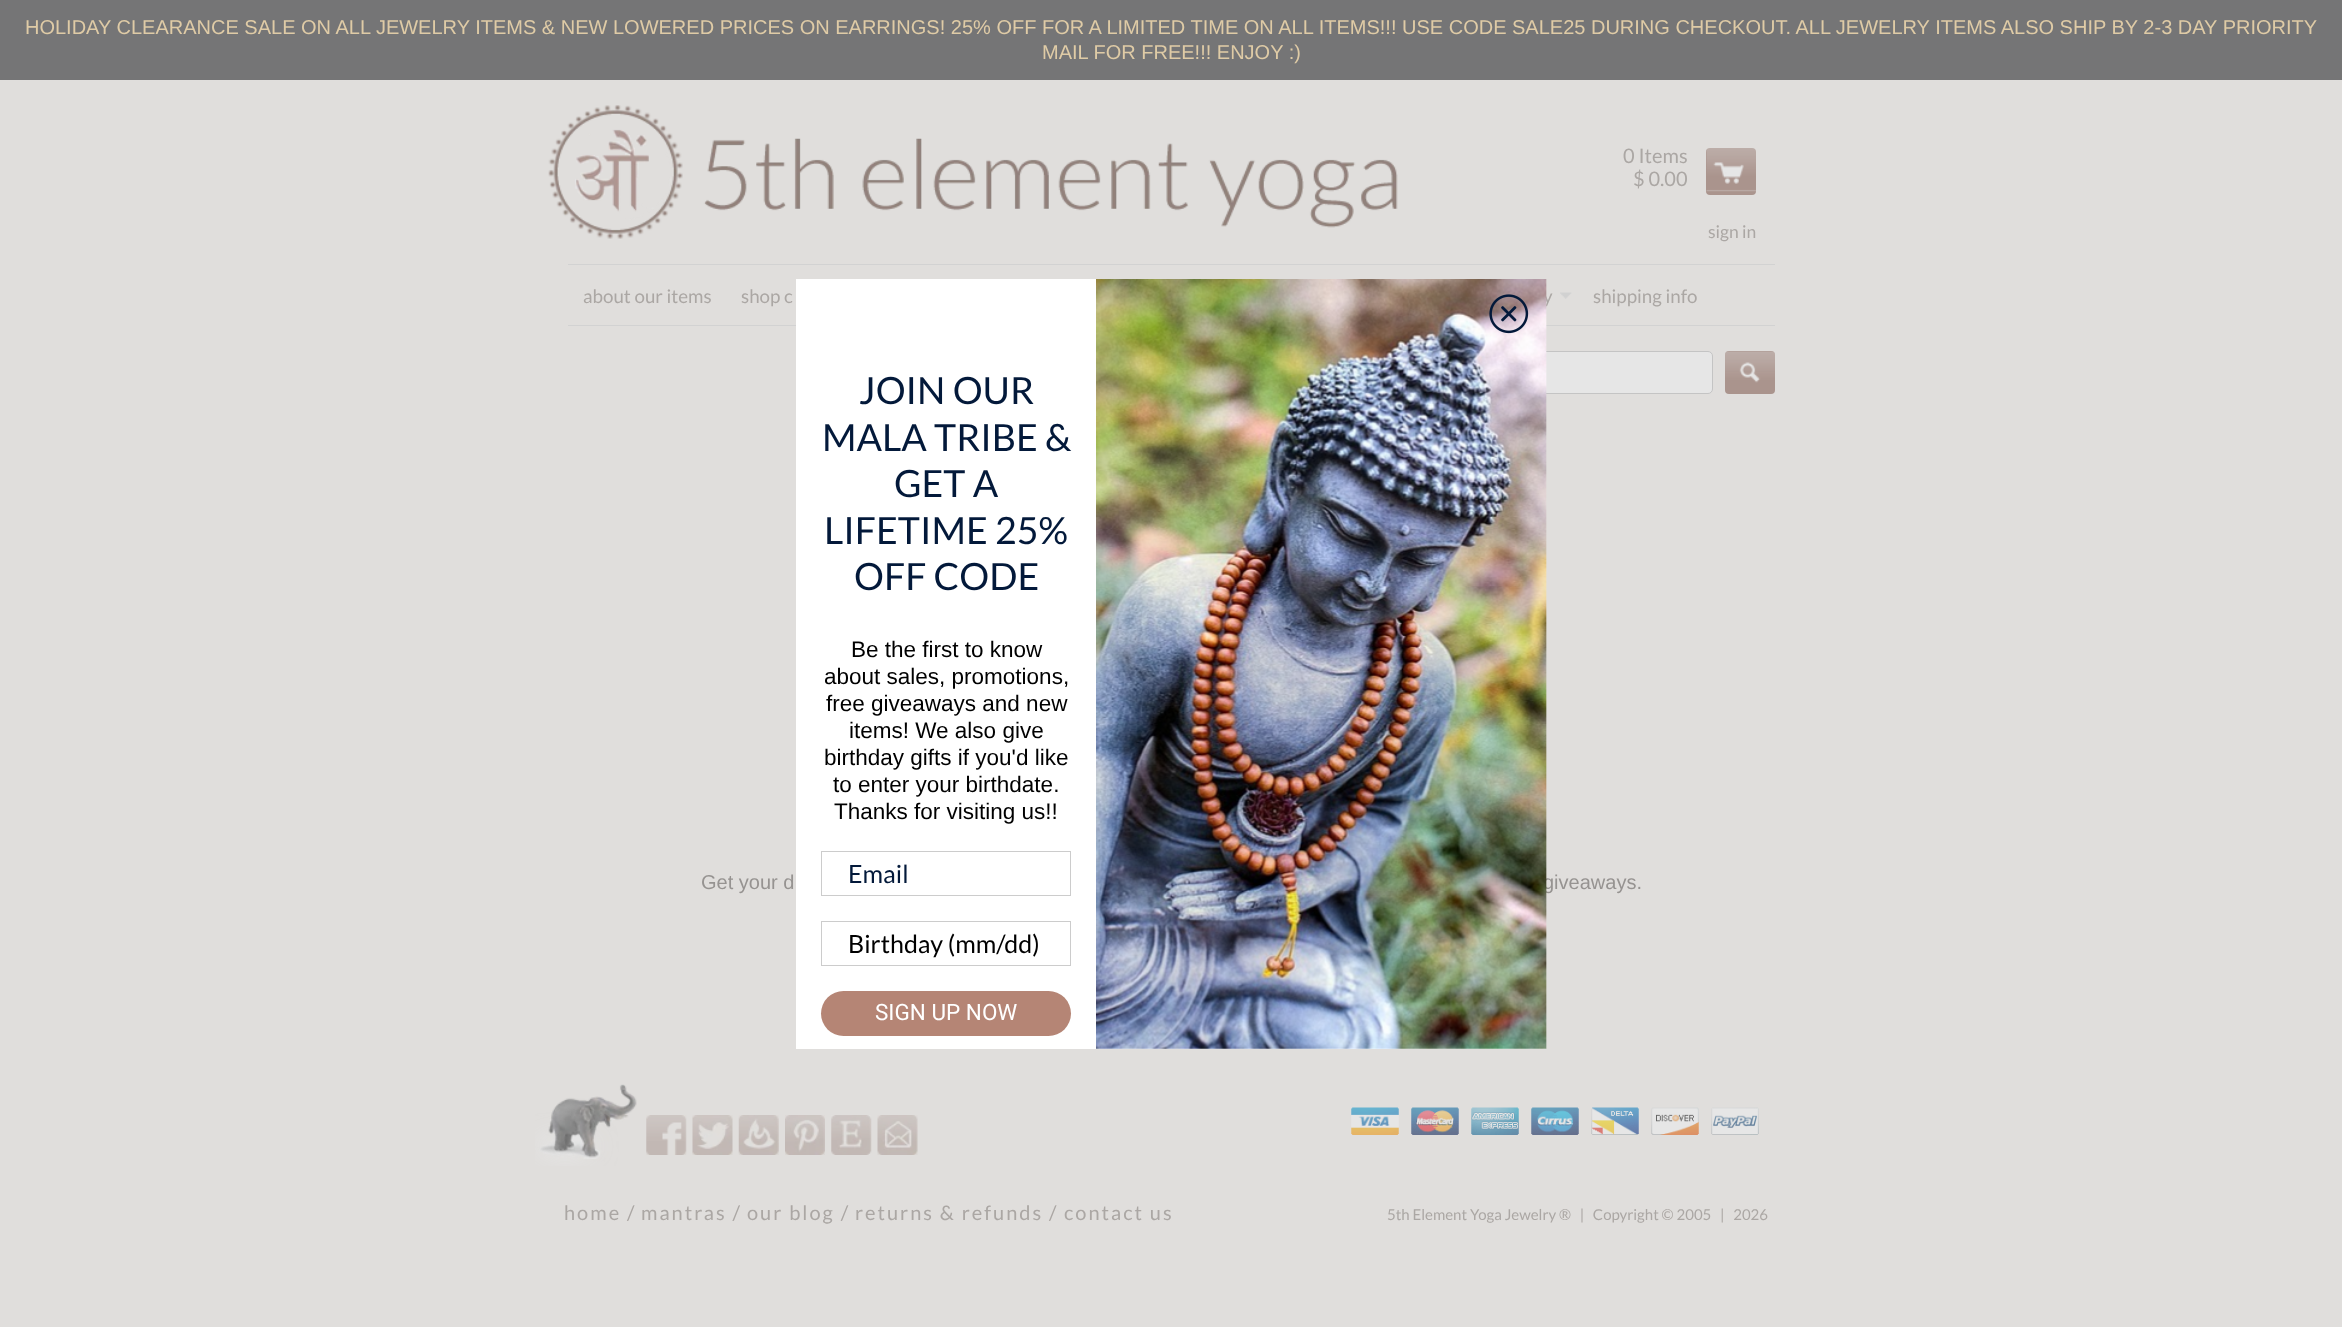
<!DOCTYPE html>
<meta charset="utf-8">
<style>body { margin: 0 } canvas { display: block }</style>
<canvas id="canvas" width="2342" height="1327"></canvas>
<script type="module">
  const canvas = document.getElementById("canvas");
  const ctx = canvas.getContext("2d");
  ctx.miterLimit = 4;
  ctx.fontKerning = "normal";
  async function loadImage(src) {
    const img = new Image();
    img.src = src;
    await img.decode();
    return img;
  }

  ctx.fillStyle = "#e0dedc";
  ctx.fillRect(0, 0, 2342, 1327);
  ctx.fillStyle = "#757576";
  ctx.fillRect(0, 0, 2342, 80);
  ctx.font = "20px Liberation Sans";
  ctx.fillStyle = "#dfcba6";
  ctx.fillText("HOLIDAY CLEARANCE SALE ON ALL JEWELRY ITEMS & NEW LOWERED PRICES ON EARRINGS! 25% OFF FOR A LIMITED TIME ON ALL ITEMS!!! USE CODE SALE25 DURING CHECKOUT. ALL JEWELRY ITEMS ALSO SHIP BY 2-3 DAY PRIORITY", 25, 34);
  ctx.fillText("MAIL FOR FREE!!! ENJOY :)", 1042, 59);
  ctx.drawImage(await loadImage("img1.png"), 548, 105, 850, 134);
  ctx.font = "20px Lato";
  ctx.fillStyle = "#aba7a4";
  ctx.fillText("0 Items", 1623, 163);
  ctx.fillText("$ 0.00", 1633, 186);
  ctx.fillStyle = "#aa948d";
  ctx.beginPath();
  ctx.roundRect(1706, 148, 50, 47, 4);
  ctx.fill();
  ctx.drawImage(await loadImage("img2.png"), 1706, 148, 50, 44);
  ctx.font = "17.5px Lato";
  ctx.fillStyle = "#aba7a4";
  ctx.fillText("sign in", 1708, 238);
  ctx.fillStyle = "#d2d2d2";
  ctx.fillRect(568, 264, 1207, 1);
  ctx.fillRect(568, 325, 1207, 1);
  ctx.font = "18.75px Lato";
  ctx.fillStyle = "#aba7a4";
  ctx.fillText("about our items", 583, 303);
  ctx.fillText("shop c", 741, 303);
  ctx.drawImage(await loadImage("img3.png"), 1560, 292, 12, 7);
  ctx.fillText("y", 1543, 303);
  ctx.fillText("shipping info", 1593, 303);
  ctx.fillStyle = "#e6e6e6";
  ctx.beginPath();
  ctx.roundRect(1463.5, 351.5, 249, 42, 4.5);
  ctx.fill();
  ctx.strokeStyle = "#c4c4c4";
  ctx.stroke();
  ctx.fillStyle = "#aa948d";
  ctx.beginPath();
  ctx.roundRect(1725, 351, 50, 43, 4);
  ctx.fill();
  ctx.drawImage(await loadImage("img4.png"), 1725, 351, 50, 32);
  ctx.font = "20px Liberation Sans";
  ctx.fillStyle = "#969391";
  ctx.fillText("Get your d", 701, 889);
  ctx.fillText("giveaways.", 1543, 889);
  ctx.drawImage(await loadImage("img5.png"), 535, 1084, 102, 82);
  ctx.drawImage(await loadImage("img6.png"), 646, 1115, 41, 40);
  ctx.drawImage(await loadImage("img7.png"), 692, 1115, 41, 40);
  ctx.drawImage(await loadImage("img8.png"), 738, 1115, 41, 40);
  ctx.drawImage(await loadImage("img9.png"), 785, 1115, 40, 40);
  ctx.drawImage(await loadImage("img10.png"), 831, 1115, 41, 40);
  ctx.drawImage(await loadImage("img11.png"), 877, 1115, 41, 40);
  ctx.drawImage(await loadImage("img12.png"), 1351, 1107, 48, 28);
  ctx.drawImage(await loadImage("img13.png"), 1411, 1107, 48, 28);
  ctx.drawImage(await loadImage("img14.png"), 1471, 1107, 48, 28);
  ctx.drawImage(await loadImage("img15.png"), 1531, 1107, 48, 28);
  ctx.drawImage(await loadImage("img16.png"), 1591, 1107, 48, 28);
  ctx.drawImage(await loadImage("img17.png"), 1651, 1107, 48, 28);
  ctx.drawImage(await loadImage("img18.png"), 1711, 1107, 48, 28);
  ctx.letterSpacing = "2px";
  ctx.font = "20px Lato";
  ctx.fillStyle = "#aba7a4";
  ctx.fillText("home /", 564, 1220);
  ctx.fillText("mantras /", 641, 1220);
  ctx.fillText("our blog /", 747, 1220);
  ctx.fillText("returns & refunds /", 855, 1220);
  ctx.fillText("contact us", 1064, 1220);
  ctx.letterSpacing = "0px";
  ctx.font = "15px Lato";
  ctx.fillText("5th Element Yoga Jewelry ®   |   Copyright © 2005", 1387, 1220);
  ctx.fillText("|   2026", 1720, 1220);
  ctx.fillStyle = "#ffffff";
  ctx.fillRect(796, 279, 750, 770);
  ctx.drawImage(await loadImage("img20.png"), 1096, 279, 451, 770);
  ctx.drawImage(await loadImage("img19.png"), 1489, 294, 40, 40);
  ctx.font = "37.5px Lato";
  ctx.fillStyle = "#03193a";
  ctx.fillText("JOIN OUR", 859, 404);
  ctx.fillText("MALA TRIBE &", 822, 451);
  ctx.fillText("GET A", 894, 497);
  ctx.fillText("LIFETIME 25%", 824, 544);
  ctx.fillText("OFF CODE", 854, 590);
  ctx.font = "22.5px Liberation Sans";
  ctx.fillStyle = "#000000";
  ctx.fillText("Be the first to know", 851, 657);
  ctx.fillText("about sales, promotions,", 824, 684);
  ctx.fillText("free giveaways and new", 826, 711);
  ctx.fillText("items! We also give", 849, 738);
  ctx.fillText("birthday gifts if you'd like", 824, 765);
  ctx.fillText("to enter your birthdate.", 833, 792);
  ctx.fillText("Thanks for visiting us!!", 834, 819);
  ctx.strokeStyle = "#cccccc";
  ctx.strokeRect(821.5, 851.5, 249, 44);
  ctx.font = "25px Lato";
  ctx.fillStyle = "#03193a";
  ctx.fillText("Email", 848, 883);
  ctx.strokeRect(821.5, 921.5, 249, 44);
  ctx.fillStyle = "#000000";
  ctx.fillText("Birthday (mm/dd)", 848, 953);
  ctx.fillStyle = "#b58575";
  ctx.beginPath();
  ctx.roundRect(821, 991, 250, 45, 22.5);
  ctx.fill();
  ctx.font = "22.5px Heebo";
  ctx.fillStyle = "#ffffff";
  ctx.fillText("SIGN UP NOW", 875, 1020);
</script>
